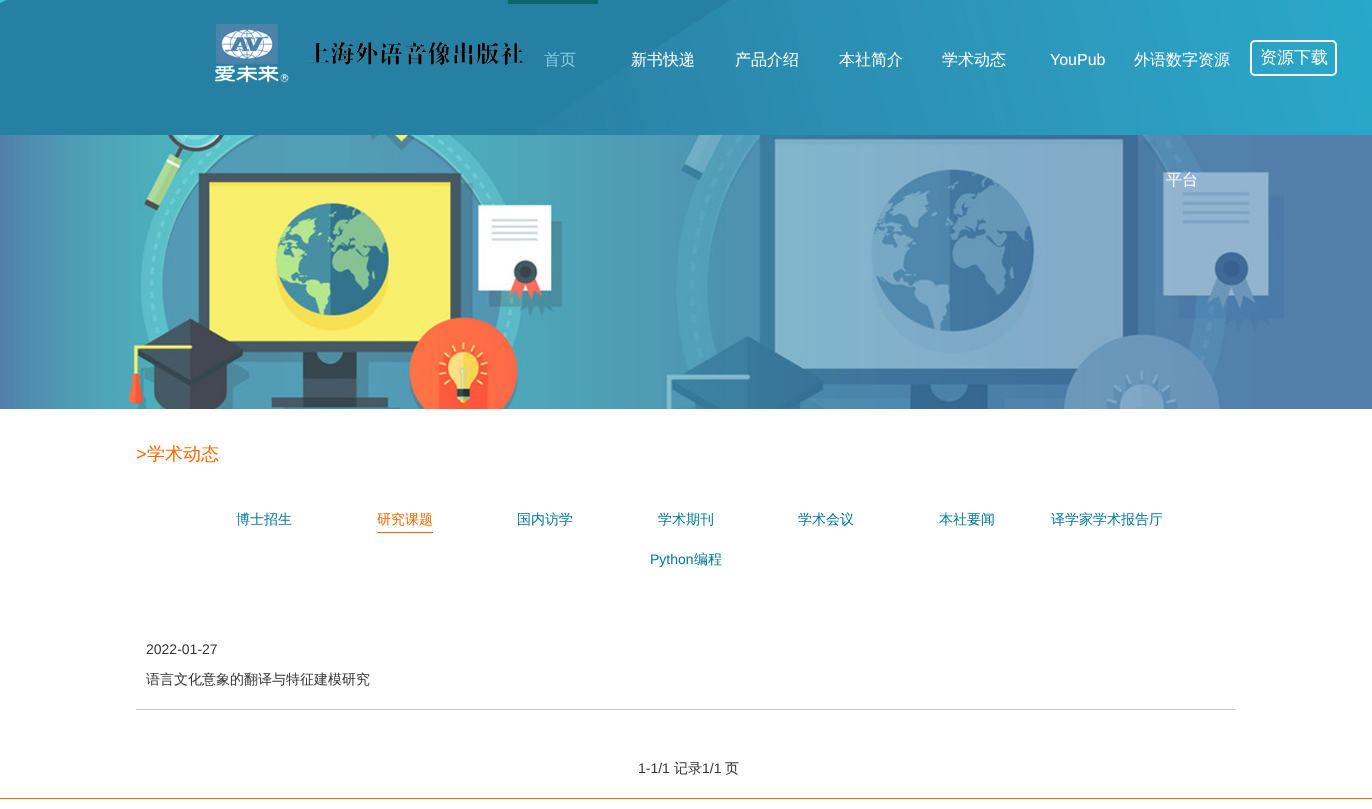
<!DOCTYPE html>
<meta charset="utf-8">
<style>body { margin: 0 } canvas { display: block }</style>
<canvas id="canvas" width="1372" height="809"></canvas>
<script type="module">
  const canvas = document.getElementById("canvas");
  const ctx = canvas.getContext("2d");
  ctx.miterLimit = 4;
  ctx.fontKerning = "normal";
  async function loadImage(src) {
    const img = new Image();
    img.src = src;
    await img.decode();
    return img;
  }

  ctx.fillStyle = "#ffffff";
  ctx.fillRect(0, 0, 1372, 809);
  ctx.drawImage(await loadImage("img1.png"), 0, 0, 1372, 135);
  ctx.drawImage(await loadImage("img2.png"), 214, 24, 309, 59);
  ctx.fillStyle = "#0c646e";
  ctx.fillRect(508, 0, 90, 4);
  ctx.font = "500 16px WenQuanYi Zen Hei";
  ctx.fillStyle = "#81cee3";
  ctx.fillText("首页", 544, 65);
  ctx.fillStyle = "#ffffff";
  ctx.fillText("新书快递", 631, 65);
  ctx.fillText("产品介绍", 735, 65);
  ctx.fillText("本社简介", 839, 65);
  ctx.fillText("学术动态", 942, 65);
  ctx.font = "16px Liberation Sans";
  ctx.fillText("YouPub", 1050, 65);
  ctx.font = "500 16px WenQuanYi Zen Hei";
  ctx.fillText("外语数字资源", 1134, 65);
  ctx.drawImage(await loadImage("img3.png"), 0, 135, 1372, 274);
  ctx.fillText("平台", 1166, 185);
  ctx.beginPath();
  ctx.roundRect(1251, 41, 85, 34, 4);
  ctx.strokeStyle = "#ffffff";
  ctx.lineWidth = 2;
  ctx.stroke();
  ctx.font = "500 17px WenQuanYi Zen Hei";
  ctx.fillText("资源下载", 1260, 63);
  ctx.font = "18px Liberation Sans";
  ctx.fillStyle = "#ff6600";
  ctx.fillText(">", 136, 460);
  ctx.font = "500 18px WenQuanYi Zen Hei";
  ctx.fillText("学术动态", 147, 460);
  ctx.font = "500 14px WenQuanYi Zen Hei";
  ctx.fillStyle = "#01769c";
  ctx.fillText("博士招生", 236, 524);
  ctx.fillStyle = "#ff6600";
  ctx.fillText("研究课题", 377, 524);
  ctx.fillRect(377, 532, 56, 1);
  ctx.fillStyle = "#01769c";
  ctx.fillText("国内访学", 517, 524);
  ctx.fillText("学术期刊", 658, 524);
  ctx.fillText("学术会议", 798, 524);
  ctx.fillText("本社要闻", 939, 524);
  ctx.fillText("译学家学术报告厅", 1051, 524);
  ctx.font = "14px Liberation Sans";
  ctx.fillText("Python", 650, 564);
  ctx.font = "500 14px WenQuanYi Zen Hei";
  ctx.fillText("编程", 694, 564);
  ctx.fillStyle = "#cccccc";
  ctx.fillRect(136, 709, 1100, 1);
  ctx.font = "14px Liberation Sans";
  ctx.fillStyle = "#333333";
  ctx.fillText("2022-01-27", 146, 654);
  ctx.font = "500 14px WenQuanYi Zen Hei";
  ctx.fillText("语言文化意象的翻译与特征建模研究", 146, 684);
  ctx.font = "14px Liberation Sans";
  ctx.fillText("1-1/1", 638, 773);
  ctx.font = "500 14px WenQuanYi Zen Hei";
  ctx.fillText("记录", 674, 773);
  ctx.font = "14px Liberation Sans";
  ctx.fillText("1/1", 702, 773);
  ctx.font = "500 14px WenQuanYi Zen Hei";
  ctx.fillText("页", 725, 773);
  ctx.fillStyle = "#ff6600";
  ctx.fillRect(0, 798, 1372, 1);
</script>
